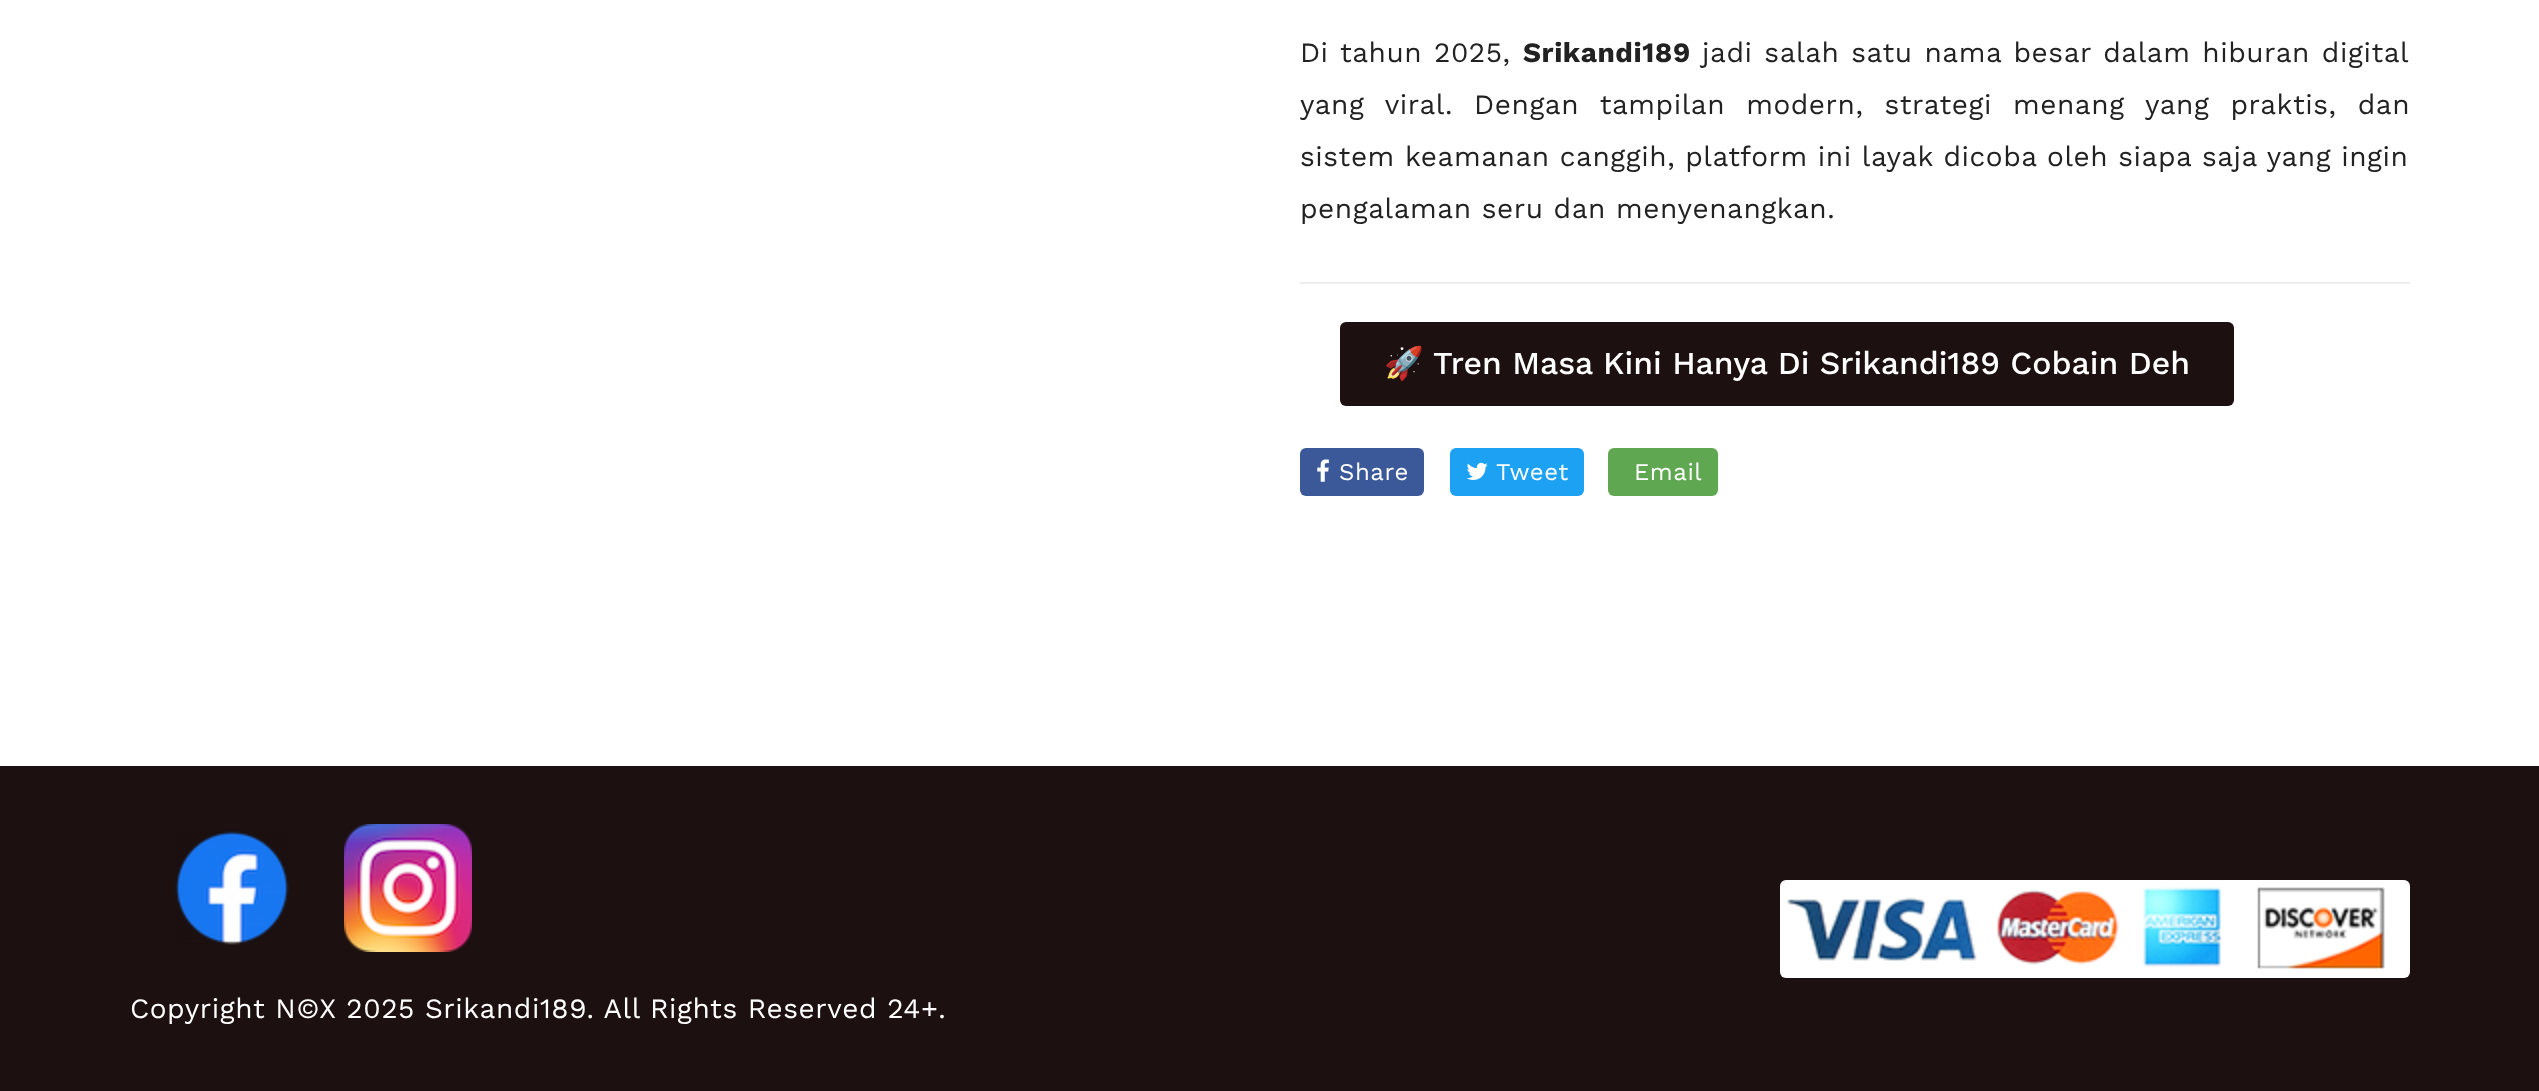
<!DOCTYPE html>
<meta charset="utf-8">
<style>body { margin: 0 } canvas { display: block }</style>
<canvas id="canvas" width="2539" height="1091"></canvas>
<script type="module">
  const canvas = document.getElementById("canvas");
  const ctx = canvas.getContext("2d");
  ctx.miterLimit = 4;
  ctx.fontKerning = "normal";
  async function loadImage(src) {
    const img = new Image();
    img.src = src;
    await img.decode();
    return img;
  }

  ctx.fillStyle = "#ffffff";
  ctx.fillRect(0, 0, 2539, 1091);
  ctx.fillStyle = "#ededed";
  ctx.fillRect(1300, 282, 1110, 2);
  ctx.letterSpacing = "0.55px";
  ctx.wordSpacing = "1.75px";
  ctx.font = "28px Work Sans";
  ctx.fillStyle = "#222222";
  ctx.fillText("Di tahun 2025,", 1300, 62);
  ctx.wordSpacing = "0px";
  ctx.font = "bold 28px Work Sans";
  ctx.fillText("Srikandi189", 1523, 62);
  ctx.wordSpacing = "1.75px";
  ctx.font = "28px Work Sans";
  ctx.fillText("jadi salah satu nama besar dalam hiburan digital", 1702, 62);
  ctx.wordSpacing = "11px";
  ctx.fillText("yang viral. Dengan tampilan modern, strategi menang yang praktis, dan", 1300, 114);
  ctx.wordSpacing = "0px";
  ctx.fillText("sistem keamanan canggih, platform ini layak dicoba oleh siapa saja yang ingin", 1300, 166);
  ctx.fillText("pengalaman seru dan menyenangkan.", 1300, 218);
  ctx.fillStyle = "#1c1010";
  ctx.beginPath();
  ctx.roundRect(1340, 322, 894, 84, 6);
  ctx.fill();
  ctx.letterSpacing = "0px";
  ctx.font = "32px Noto Color Emoji";
  ctx.fillStyle = "#ffffff";
  ctx.fillText("🚀", 1384, 374);
  ctx.font = "500 32px Work Sans";
  ctx.fillText("Tren Masa Kini Hanya Di Srikandi189 Cobain Deh", 1433, 374);
  ctx.fillStyle = "#3b5999";
  ctx.beginPath();
  ctx.roundRect(1300, 448, 124, 48, 6);
  ctx.fill();
  ctx.drawImage(await loadImage("img1.png"), 1317, 459, 12, 23);
  ctx.letterSpacing = "0.55px";
  ctx.font = "24px Work Sans";
  ctx.fillStyle = "#ffffff";
  ctx.fillText("Share", 1339, 480);
  ctx.fillStyle = "#1da1f2";
  ctx.beginPath();
  ctx.roundRect(1450, 448, 134, 48, 6);
  ctx.fill();
  ctx.drawImage(await loadImage("img2.png"), 1466, 462, 22, 18);
  ctx.fillStyle = "#ffffff";
  ctx.fillText("Tweet", 1496, 480);
  ctx.fillStyle = "#5fa751";
  ctx.beginPath();
  ctx.roundRect(1608, 448, 110, 48, 6);
  ctx.fill();
  ctx.fillStyle = "#ffffff";
  ctx.fillText("Email", 1634, 480);
  ctx.fillStyle = "#1c1010";
  ctx.fillRect(0, 766, 2539, 325);
  ctx.drawImage(await loadImage("img3.png"), 1780, 880, 630, 98);
  ctx.drawImage(await loadImage("img4.png"), 175, 831, 114, 114);
  ctx.drawImage(await loadImage("img5.png"), 344, 824, 128, 128);
  ctx.font = "28px Work Sans";
  ctx.fillStyle = "#ffffff";
  ctx.fillText("Copyright N©X 2025 Srikandi189. All Rights Reserved 24+.", 130, 1018);
</script>
